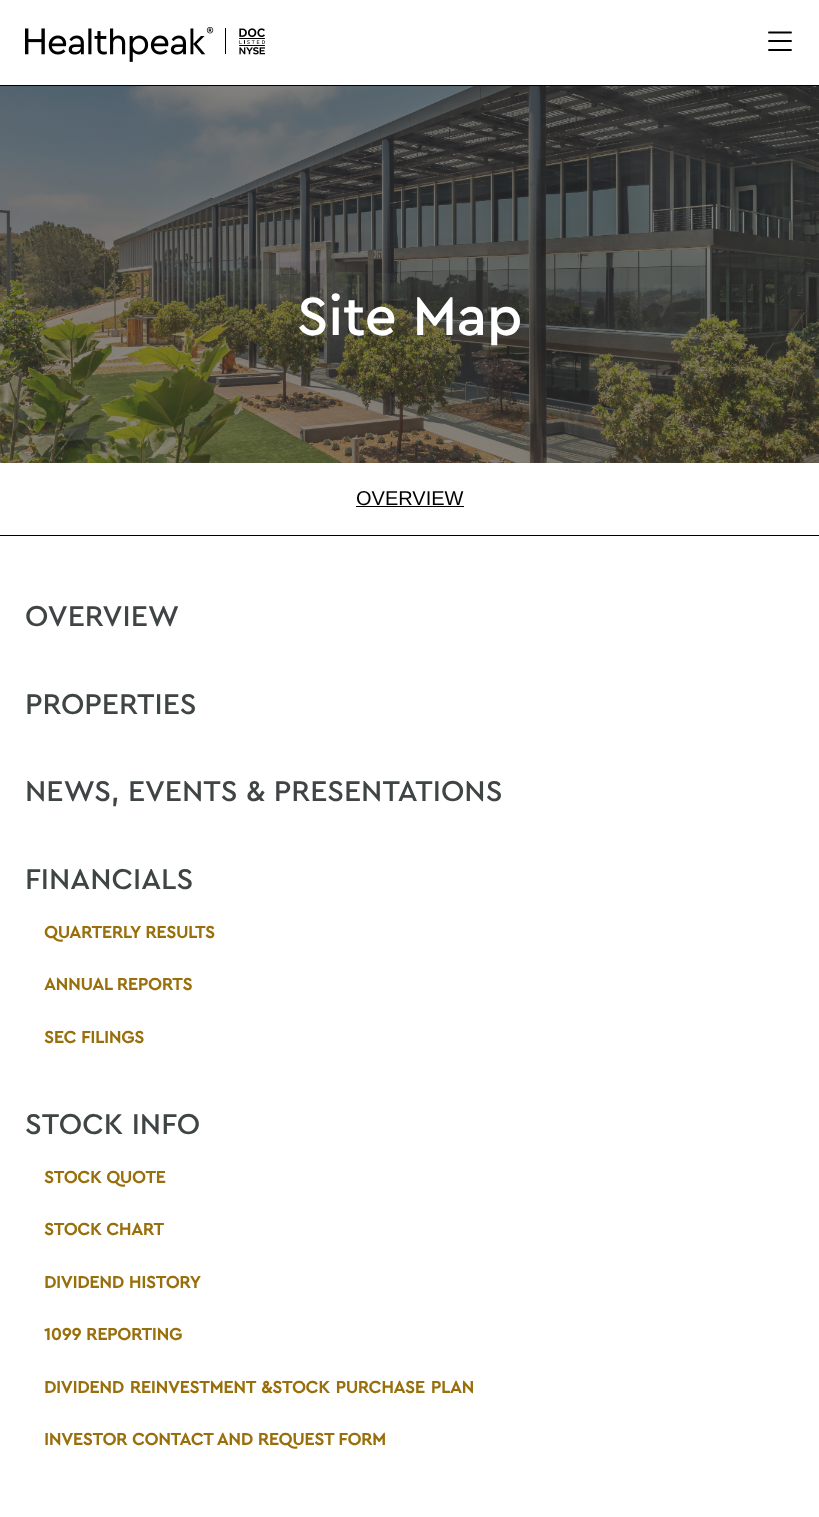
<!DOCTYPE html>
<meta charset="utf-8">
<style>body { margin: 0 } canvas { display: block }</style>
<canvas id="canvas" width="819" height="1517"></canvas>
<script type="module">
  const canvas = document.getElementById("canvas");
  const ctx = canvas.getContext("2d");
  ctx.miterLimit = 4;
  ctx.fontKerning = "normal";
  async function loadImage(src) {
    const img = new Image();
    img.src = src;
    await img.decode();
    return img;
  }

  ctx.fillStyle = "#ffffff";
  ctx.fillRect(0, 0, 819, 1517);
  ctx.drawImage(await loadImage("img1.png"), 25, 27, 240, 35);
  ctx.beginPath();
  ctx.moveTo(769, 32.5);
  ctx.lineTo(791, 32.5);
  ctx.moveTo(769, 41);
  ctx.lineTo(791, 41);
  ctx.moveTo(769, 50);
  ctx.lineTo(791, 50);
  ctx.strokeStyle = "#000000";
  ctx.lineWidth = 1.9;
  ctx.lineCap = "round";
  ctx.lineJoin = "round";
  ctx.stroke();
  ctx.fillStyle = "#000000";
  ctx.fillRect(0, 85, 819, 1);
  ctx.fillStyle = "#3f4444";
  ctx.fillRect(0, 462, 819, 1);
  ctx.drawImage(await loadImage("img2.png"), 0, 86, 819, 377);
  ctx.font = "500 56.25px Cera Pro";
  ctx.fillStyle = "#ffffff";
  ctx.fillText("Site Map", 297, 335);
  ctx.fillStyle = "#000000";
  ctx.fillRect(0, 535, 819, 1);
  ctx.font = "20px Liberation Sans";
  ctx.fillText("OVERVIEW", 356, 505);
  ctx.fillRect(356, 506, 108, 1);
  ctx.font = "500 30px Cera Pro";
  ctx.fillStyle = "#3f4444";
  ctx.fillText("OVERVIEW", 25, 626);
  ctx.fillText("PROPERTIES", 25, 714);
  ctx.fillText("NEWS, EVENTS & PRESENTATIONS", 25, 801);
  ctx.fillText("FINANCIALS", 25, 889);
  ctx.font = "bold 17.5px Cera Pro";
  ctx.fillStyle = "#986f0b";
  ctx.fillText("QUARTERLY RESULTS", 44, 938);
  ctx.fillText("ANNUAL REPORTS", 44, 990);
  ctx.fillText("SEC FILINGS", 44, 1043);
  ctx.font = "500 30px Cera Pro";
  ctx.fillStyle = "#3f4444";
  ctx.fillText("STOCK INFO", 25, 1134);
  ctx.font = "bold 17.5px Cera Pro";
  ctx.fillStyle = "#986f0b";
  ctx.fillText("STOCK QUOTE", 44, 1183);
  ctx.fillText("STOCK CHART", 44, 1235);
  ctx.fillText("DIVIDEND HISTORY", 44, 1288);
  ctx.fillText("1099 REPORTING", 44, 1340);
  ctx.wordSpacing = "1px";
  ctx.fillText("DIVIDEND REINVESTMENT &STOCK PURCHASE PLAN", 44, 1393);
  ctx.wordSpacing = "0px";
  ctx.fillText("INVESTOR CONTACT AND REQUEST FORM", 44, 1445);
</script>
